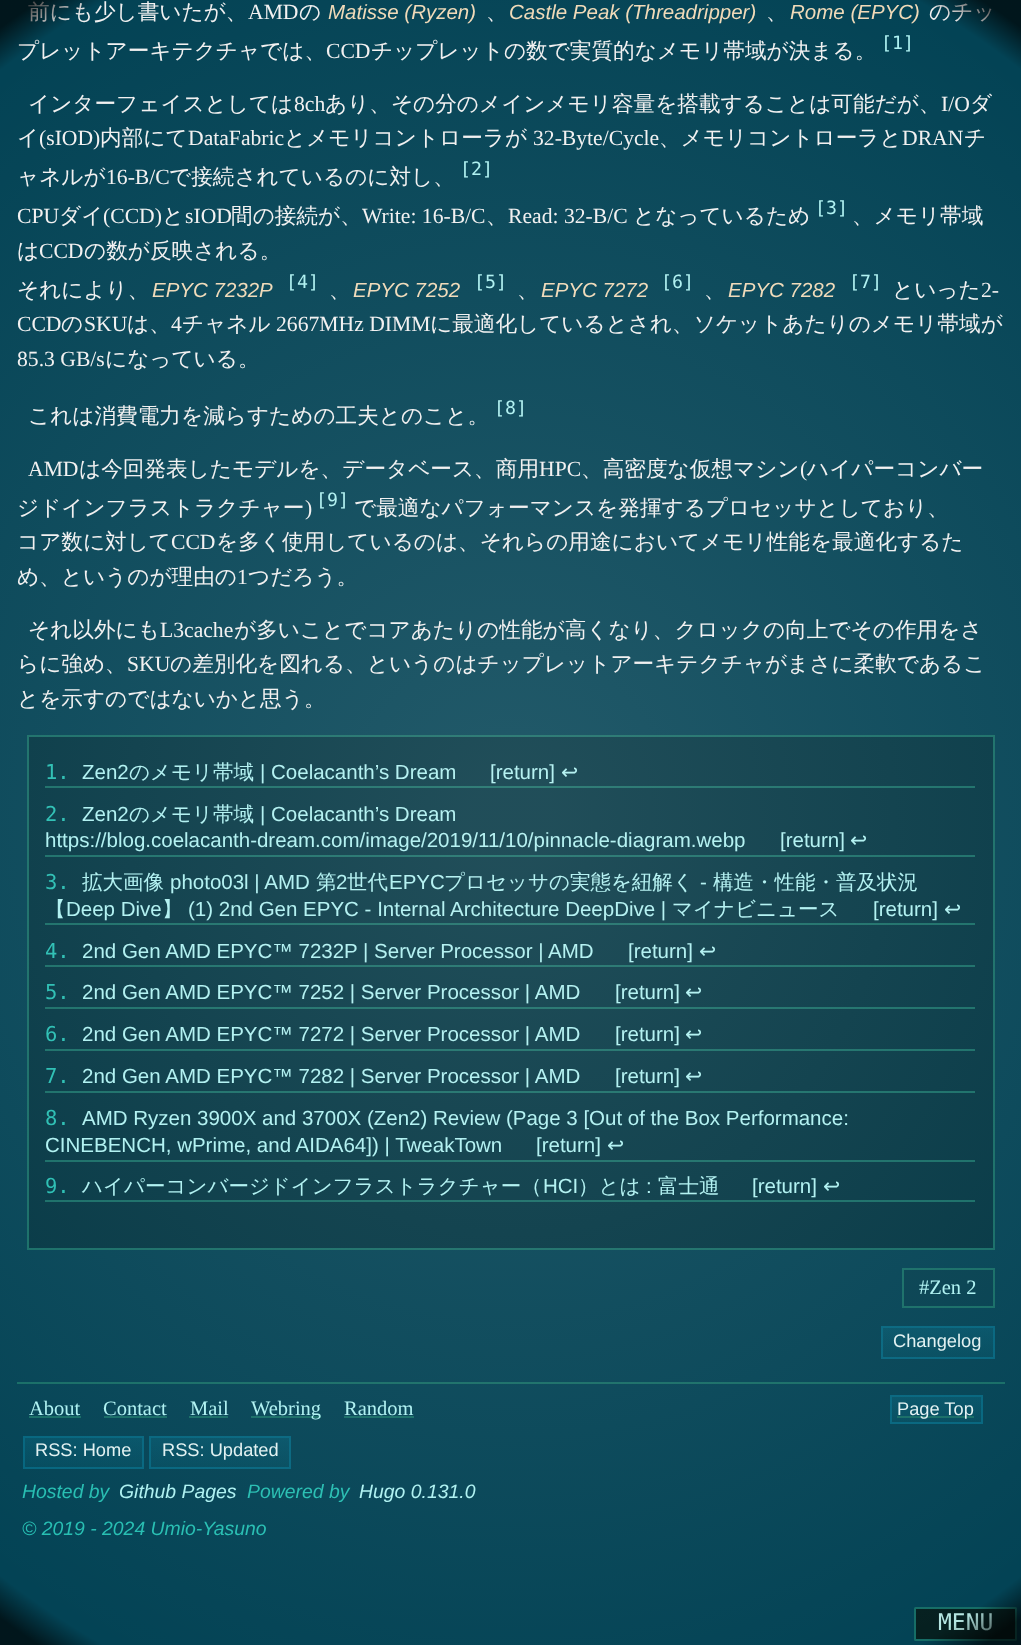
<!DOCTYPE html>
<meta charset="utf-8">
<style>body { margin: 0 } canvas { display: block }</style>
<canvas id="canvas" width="1021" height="1645"></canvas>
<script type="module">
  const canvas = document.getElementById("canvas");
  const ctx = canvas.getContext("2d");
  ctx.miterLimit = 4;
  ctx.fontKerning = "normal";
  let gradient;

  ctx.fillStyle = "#034355";
  ctx.fillRect(0, 0, 1021, 1645);
  ctx.font = "500 21.65px WenQuanYi Zen Hei";
  ctx.fillStyle = "#f2f1f1";
  ctx.fillText("前にも少し書いたが、", 28, 19);
  ctx.font = "21.65px Liberation Serif";
  ctx.fillText("AMD", 248, 19);
  ctx.font = "500 21.65px WenQuanYi Zen Hei";
  ctx.fillText("の", 299, 19);
  ctx.font = "italic 20.5px Liberation Sans";
  ctx.fillStyle = "#f0dab8";
  ctx.fillText("Matisse (Ryzen)", 328, 19);
  ctx.font = "500 21.65px WenQuanYi Zen Hei";
  ctx.fillStyle = "#f2f1f1";
  ctx.fillText("、", 486, 19);
  ctx.font = "italic 20.5px Liberation Sans";
  ctx.fillStyle = "#f0dab8";
  ctx.fillText("Castle Peak (Threadripper)", 509, 19);
  ctx.font = "500 21.65px WenQuanYi Zen Hei";
  ctx.fillStyle = "#f2f1f1";
  ctx.fillText("、", 766, 19);
  ctx.font = "italic 20.5px Liberation Sans";
  ctx.fillStyle = "#f0dab8";
  ctx.fillText("Rome (EPYC)", 790, 19);
  ctx.font = "500 21.65px WenQuanYi Zen Hei";
  ctx.fillStyle = "#f2f1f1";
  ctx.fillText("のチッ", 929, 19);
  ctx.fillText("プレットアーキテクチャでは、", 17, 58);
  ctx.font = "21.65px Liberation Serif";
  ctx.fillText("CCD", 326, 58);
  ctx.font = "500 21.65px WenQuanYi Zen Hei";
  ctx.fillText("チップレットの数で実質的なメモリ帯域が決まる。", 371, 58);
  ctx.font = "18.25px DejaVu Sans Mono";
  ctx.fillStyle = "#aef2f2";
  ctx.fillText("[1]", 881, 49);
  ctx.font = "500 21.65px WenQuanYi Zen Hei";
  ctx.fillStyle = "#f2f1f1";
  ctx.fillText("インターフェイスとしては", 28, 111);
  ctx.font = "21.65px Liberation Serif";
  ctx.fillText("8ch", 294, 111);
  ctx.font = "500 21.65px WenQuanYi Zen Hei";
  ctx.fillText("あり、その分のメインメモリ容量を搭載することは可能だが、", 325, 111);
  ctx.font = "21.65px Liberation Serif";
  ctx.fillText("I/O", 941, 111);
  ctx.font = "500 21.65px WenQuanYi Zen Hei";
  ctx.fillText("ダ", 970, 111);
  ctx.fillText("イ", 17, 145);
  ctx.font = "21.65px Liberation Serif";
  ctx.fillText("(sIOD)", 39, 145);
  ctx.font = "500 21.65px WenQuanYi Zen Hei";
  ctx.fillText("内部にて", 100, 145);
  ctx.font = "21.65px Liberation Serif";
  ctx.fillText("DataFabric", 188, 145);
  ctx.font = "500 21.65px WenQuanYi Zen Hei";
  ctx.fillText("とメモリコントローラが", 284, 145);
  ctx.font = "21.65px Liberation Serif";
  ctx.fillText("32-Byte/Cycle", 533, 145);
  ctx.font = "500 21.65px WenQuanYi Zen Hei";
  ctx.fillText("、メモリコントローラと", 659, 145);
  ctx.font = "21.65px Liberation Serif";
  ctx.fillText("DRAN", 902, 145);
  ctx.font = "500 21.65px WenQuanYi Zen Hei";
  ctx.fillText("チ", 964, 145);
  ctx.fillText("ャネルが", 17, 184);
  ctx.font = "21.65px Liberation Serif";
  ctx.fillText("16-B/C", 106, 184);
  ctx.font = "500 21.65px WenQuanYi Zen Hei";
  ctx.fillText("で接続されているのに対し、", 169, 184);
  ctx.font = "18.25px DejaVu Sans Mono";
  ctx.fillStyle = "#aef2f2";
  ctx.fillText("[2]", 460, 175);
  ctx.font = "21.65px Liberation Serif";
  ctx.fillStyle = "#f2f1f1";
  ctx.fillText("CPU", 17, 223);
  ctx.font = "500 21.65px WenQuanYi Zen Hei";
  ctx.fillText("ダイ", 59, 223);
  ctx.font = "21.65px Liberation Serif";
  ctx.fillText("(CCD)", 103, 223);
  ctx.font = "500 21.65px WenQuanYi Zen Hei";
  ctx.fillText("と", 162, 223);
  ctx.font = "21.65px Liberation Serif";
  ctx.fillText("sIOD", 185, 223);
  ctx.font = "500 21.65px WenQuanYi Zen Hei";
  ctx.fillText("間の接続が、", 231, 223);
  ctx.font = "21.65px Liberation Serif";
  ctx.fillText("Write: 16-B/C", 362, 223);
  ctx.font = "500 21.65px WenQuanYi Zen Hei";
  ctx.fillText("、", 486, 223);
  ctx.font = "21.65px Liberation Serif";
  ctx.fillText("Read: 32-B/C", 508, 223);
  ctx.font = "500 21.65px WenQuanYi Zen Hei";
  ctx.fillText("となっているため", 633, 223);
  ctx.font = "18.25px DejaVu Sans Mono";
  ctx.fillStyle = "#aef2f2";
  ctx.fillText("[3]", 815, 214);
  ctx.font = "500 21.65px WenQuanYi Zen Hei";
  ctx.fillStyle = "#f2f1f1";
  ctx.fillText("、メモリ帯域", 852, 223);
  ctx.fillText("は", 17, 258);
  ctx.font = "21.65px Liberation Serif";
  ctx.fillText("CCD", 39, 258);
  ctx.font = "500 21.65px WenQuanYi Zen Hei";
  ctx.fillText("の数が反映される。", 84, 258);
  ctx.fillText("それにより、", 17, 297);
  ctx.font = "italic 20.5px Liberation Sans";
  ctx.fillStyle = "#f0dab8";
  ctx.fillText("EPYC 7232P", 152, 297);
  ctx.font = "18.25px DejaVu Sans Mono";
  ctx.fillStyle = "#aef2f2";
  ctx.fillText("[4]", 286, 288);
  ctx.font = "italic 20.5px Liberation Sans";
  ctx.fillStyle = "#f0dab8";
  ctx.fillText("EPYC 7252", 353, 297);
  ctx.font = "18.25px DejaVu Sans Mono";
  ctx.fillStyle = "#aef2f2";
  ctx.fillText("[5]", 474, 288);
  ctx.font = "italic 20.5px Liberation Sans";
  ctx.fillStyle = "#f0dab8";
  ctx.fillText("EPYC 7272", 541, 297);
  ctx.font = "18.25px DejaVu Sans Mono";
  ctx.fillStyle = "#aef2f2";
  ctx.fillText("[6]", 661, 288);
  ctx.font = "italic 20.5px Liberation Sans";
  ctx.fillStyle = "#f0dab8";
  ctx.fillText("EPYC 7282", 728, 297);
  ctx.font = "18.25px DejaVu Sans Mono";
  ctx.fillStyle = "#aef2f2";
  ctx.fillText("[7]", 849, 288);
  ctx.font = "500 21.65px WenQuanYi Zen Hei";
  ctx.fillStyle = "#f2f1f1";
  ctx.fillText("といった", 892, 297);
  ctx.font = "21.65px Liberation Serif";
  ctx.fillText("2-", 981, 297);
  ctx.font = "500 21.65px WenQuanYi Zen Hei";
  ctx.fillText("、", 329, 297);
  ctx.fillText("、", 517, 297);
  ctx.fillText("、", 704, 297);
  ctx.font = "21.65px Liberation Serif";
  ctx.fillText("CCD", 17, 331);
  ctx.font = "500 21.65px WenQuanYi Zen Hei";
  ctx.fillText("の", 61, 331);
  ctx.font = "21.65px Liberation Serif";
  ctx.fillText("SKU", 84, 331);
  ctx.font = "500 21.65px WenQuanYi Zen Hei";
  ctx.fillText("は、", 127, 331);
  ctx.font = "21.65px Liberation Serif";
  ctx.fillText("4", 171, 331);
  ctx.font = "500 21.65px WenQuanYi Zen Hei";
  ctx.fillText("チャネル", 182, 331);
  ctx.font = "21.65px Liberation Serif";
  ctx.fillText("2667MHz DIMM", 276, 331);
  ctx.font = "500 21.65px WenQuanYi Zen Hei";
  ctx.fillText("に最適化しているとされ、ソケットあたりのメモリ帯域が", 430, 331);
  ctx.font = "21.65px Liberation Serif";
  ctx.fillText("85.3 GB/s", 17, 366);
  ctx.font = "500 21.65px WenQuanYi Zen Hei";
  ctx.fillText("になっている。", 105, 366);
  ctx.fillText("これは消費電力を減らすための工夫とのこと。", 28, 423);
  ctx.font = "18.25px DejaVu Sans Mono";
  ctx.fillStyle = "#aef2f2";
  ctx.fillText("[8]", 494, 414);
  ctx.font = "21.65px Liberation Serif";
  ctx.fillStyle = "#f2f1f1";
  ctx.fillText("AMD", 28, 476);
  ctx.font = "500 21.65px WenQuanYi Zen Hei";
  ctx.fillText("は今回発表したモデルを、データベース、商用", 79, 476);
  ctx.font = "21.65px Liberation Serif";
  ctx.fillText("HPC", 539, 476);
  ctx.font = "500 21.65px WenQuanYi Zen Hei";
  ctx.fillText("、高密度な仮想マシン", 581, 476);
  ctx.font = "21.65px Liberation Serif";
  ctx.fillText("(", 800, 476);
  ctx.font = "500 21.65px WenQuanYi Zen Hei";
  ctx.fillText("ハイパーコンバー", 807, 476);
  ctx.fillText("ジドインフラストラクチャー", 17, 515);
  ctx.font = "21.65px Liberation Serif";
  ctx.fillText(")", 305, 515);
  ctx.font = "18.25px DejaVu Sans Mono";
  ctx.fillStyle = "#aef2f2";
  ctx.fillText("[9]", 316, 506);
  ctx.font = "500 21.65px WenQuanYi Zen Hei";
  ctx.fillStyle = "#f2f1f1";
  ctx.fillText("で最適なパフォーマンスを発揮するプロセッサとしており、", 354, 515);
  ctx.fillText("コア数に対して", 17, 549);
  ctx.font = "21.65px Liberation Serif";
  ctx.fillText("CCD", 171, 549);
  ctx.font = "500 21.65px WenQuanYi Zen Hei";
  ctx.fillText("を多く使用しているのは、それらの用途においてメモリ性能を最適化するた", 216, 549);
  ctx.fillText("め、というのが理由の", 17, 584);
  ctx.font = "21.65px Liberation Serif";
  ctx.fillText("1", 237, 584);
  ctx.font = "500 21.65px WenQuanYi Zen Hei";
  ctx.fillText("つだろう。", 248, 584);
  ctx.fillText("それ以外にも", 28, 637);
  ctx.font = "21.65px Liberation Serif";
  ctx.fillText("L3cache", 160, 637);
  ctx.font = "500 21.65px WenQuanYi Zen Hei";
  ctx.fillText("が多いことでコアあたりの性能が高くなり、クロックの向上でその作用をさ", 234, 637);
  ctx.fillText("らに強め、", 17, 671);
  ctx.font = "21.65px Liberation Serif";
  ctx.fillText("SKU", 127, 671);
  ctx.font = "500 21.65px WenQuanYi Zen Hei";
  ctx.fillText("の差別化を図れる、というのはチップレットアーキテクチャがまさに柔軟であるこ", 170, 671);
  ctx.fillText("とを示すのではないかと思う。", 17, 706);
  ctx.fillStyle = "#023643";
  ctx.beginPath();
  ctx.rect(28, 736, 966, 513);
  ctx.fill();
  ctx.strokeStyle = "#166d66";
  ctx.lineWidth = 2;
  ctx.stroke();
  ctx.fillStyle = "#166d66";
  ctx.fillRect(45, 786, 930, 2);
  ctx.font = "20.5px DejaVu Sans Mono";
  ctx.fillStyle = "#26beb2";
  ctx.fillText("1.", 45, 779);
  ctx.font = "20.5px Liberation Sans";
  ctx.fillStyle = "#aef2f2";
  ctx.fillText("Zen2", 82, 779);
  ctx.font = "500 20.5px WenQuanYi Zen Hei";
  ctx.fillText("のメモリ帯域", 129, 779);
  ctx.font = "20.5px Liberation Sans";
  ctx.fillText("| Coelacanth’s Dream", 260, 779);
  ctx.fillText("[return]", 490, 779);
  ctx.font = "20.5px DejaVu Sans";
  ctx.fillText("↩︎", 561, 779);
  ctx.fillStyle = "#166d66";
  ctx.fillRect(45, 855, 930, 2);
  ctx.font = "20.5px DejaVu Sans Mono";
  ctx.fillStyle = "#26beb2";
  ctx.fillText("2.", 45, 821);
  ctx.font = "20.5px Liberation Sans";
  ctx.fillStyle = "#aef2f2";
  ctx.fillText("Zen2", 82, 821);
  ctx.font = "500 20.5px WenQuanYi Zen Hei";
  ctx.fillText("のメモリ帯域", 129, 821);
  ctx.font = "20.5px Liberation Sans";
  ctx.fillText("| Coelacanth’s Dream", 260, 821);
  ctx.fillText("https://blog.coelacanth-dream.com/image/2019/11/10/pinnacle-diagram.webp", 45, 847);
  ctx.fillText("[return]", 780, 847);
  ctx.font = "20.5px DejaVu Sans";
  ctx.fillText("↩︎", 850, 847);
  ctx.fillStyle = "#166d66";
  ctx.fillRect(45, 923, 930, 2);
  ctx.font = "20.5px DejaVu Sans Mono";
  ctx.fillStyle = "#26beb2";
  ctx.fillText("3.", 45, 889);
  ctx.font = "500 20.5px WenQuanYi Zen Hei";
  ctx.fillStyle = "#aef2f2";
  ctx.fillText("拡大画像", 82, 889);
  ctx.font = "20.5px Liberation Sans";
  ctx.fillText("photo03l | AMD", 170, 889);
  ctx.font = "500 20.5px WenQuanYi Zen Hei";
  ctx.fillText("第", 316, 889);
  ctx.font = "20.5px Liberation Sans";
  ctx.fillText("2", 336, 889);
  ctx.font = "500 20.5px WenQuanYi Zen Hei";
  ctx.fillText("世代", 347, 889);
  ctx.font = "20.5px Liberation Sans";
  ctx.fillText("EPYC", 389, 889);
  ctx.font = "500 20.5px WenQuanYi Zen Hei";
  ctx.fillText("プロセッサの実態を紐解く", 444, 889);
  ctx.font = "20.5px Liberation Sans";
  ctx.fillText("-", 700, 889);
  ctx.font = "500 20.5px WenQuanYi Zen Hei";
  ctx.fillText("構造・性能・普及状況", 713, 889);
  ctx.fillText("【", 45, 916);
  ctx.font = "20.5px Liberation Sans";
  ctx.fillText("Deep Dive", 66, 916);
  ctx.font = "500 20.5px WenQuanYi Zen Hei";
  ctx.fillText("】", 162, 916);
  ctx.font = "20.5px Liberation Sans";
  ctx.fillText("(1) 2nd Gen EPYC - Internal Architecture DeepDive |", 188, 916);
  ctx.font = "500 20.5px WenQuanYi Zen Hei";
  ctx.fillText("マイナビニュース", 672, 916);
  ctx.font = "20.5px Liberation Sans";
  ctx.fillText("[return]", 873, 916);
  ctx.font = "20.5px DejaVu Sans";
  ctx.fillText("↩︎", 944, 916);
  ctx.fillStyle = "#166d66";
  ctx.fillRect(45, 965, 930, 2);
  ctx.font = "20.5px DejaVu Sans Mono";
  ctx.fillStyle = "#26beb2";
  ctx.fillText("4.", 45, 958);
  ctx.font = "20.5px Liberation Sans";
  ctx.fillStyle = "#aef2f2";
  ctx.fillText("2nd Gen AMD EPYC™ 7232P | Server Processor | AMD", 82, 958);
  ctx.fillText("[return]", 628, 958);
  ctx.font = "20.5px DejaVu Sans";
  ctx.fillText("↩︎", 699, 958);
  ctx.fillStyle = "#166d66";
  ctx.fillRect(45, 1007, 930, 2);
  ctx.font = "20.5px DejaVu Sans Mono";
  ctx.fillStyle = "#26beb2";
  ctx.fillText("5.", 45, 999);
  ctx.font = "20.5px Liberation Sans";
  ctx.fillStyle = "#aef2f2";
  ctx.fillText("2nd Gen AMD EPYC™ 7252 | Server Processor | AMD", 82, 999);
  ctx.fillText("[return]", 615, 999);
  ctx.font = "20.5px DejaVu Sans";
  ctx.fillText("↩︎", 685, 999);
  ctx.fillStyle = "#166d66";
  ctx.fillRect(45, 1049, 930, 2);
  ctx.font = "20.5px DejaVu Sans Mono";
  ctx.fillStyle = "#26beb2";
  ctx.fillText("6.", 45, 1041);
  ctx.font = "20.5px Liberation Sans";
  ctx.fillStyle = "#aef2f2";
  ctx.fillText("2nd Gen AMD EPYC™ 7272 | Server Processor | AMD", 82, 1041);
  ctx.fillText("[return]", 615, 1041);
  ctx.font = "20.5px DejaVu Sans";
  ctx.fillText("↩︎", 685, 1041);
  ctx.fillStyle = "#166d66";
  ctx.fillRect(45, 1091, 930, 2);
  ctx.font = "20.5px DejaVu Sans Mono";
  ctx.fillStyle = "#26beb2";
  ctx.fillText("7.", 45, 1083);
  ctx.font = "20.5px Liberation Sans";
  ctx.fillStyle = "#aef2f2";
  ctx.fillText("2nd Gen AMD EPYC™ 7282 | Server Processor | AMD", 82, 1083);
  ctx.fillText("[return]", 615, 1083);
  ctx.font = "20.5px DejaVu Sans";
  ctx.fillText("↩︎", 685, 1083);
  ctx.fillStyle = "#166d66";
  ctx.fillRect(45, 1160, 930, 2);
  ctx.font = "20.5px DejaVu Sans Mono";
  ctx.fillStyle = "#26beb2";
  ctx.fillText("8.", 45, 1125);
  ctx.font = "20.5px Liberation Sans";
  ctx.fillStyle = "#aef2f2";
  ctx.fillText("AMD Ryzen 3900X and 3700X (Zen2) Review (Page 3 [Out of the Box Performance:", 82, 1125);
  ctx.fillText("CINEBENCH, wPrime, and AIDA64]) | TweakTown", 45, 1152);
  ctx.fillText("[return]", 536, 1152);
  ctx.font = "20.5px DejaVu Sans";
  ctx.fillText("↩︎", 607, 1152);
  ctx.fillStyle = "#166d66";
  ctx.fillRect(45, 1200, 930, 2);
  ctx.font = "20.5px DejaVu Sans Mono";
  ctx.fillStyle = "#26beb2";
  ctx.fillText("9.", 45, 1193);
  ctx.font = "500 20.5px WenQuanYi Zen Hei";
  ctx.fillStyle = "#aef2f2";
  ctx.fillText("ハイパーコンバージドインフラストラクチャー（", 82, 1193);
  ctx.font = "20.5px Liberation Sans";
  ctx.fillText("HCI", 543, 1193);
  ctx.font = "500 20.5px WenQuanYi Zen Hei";
  ctx.fillText("）とは", 578, 1193);
  ctx.font = "20.5px Liberation Sans";
  ctx.fillText(":", 646, 1193);
  ctx.font = "500 20.5px WenQuanYi Zen Hei";
  ctx.fillText("富士通", 658, 1193);
  ctx.font = "20.5px Liberation Sans";
  ctx.fillText("[return]", 752, 1193);
  ctx.font = "20.5px DejaVu Sans";
  ctx.fillText("↩︎", 823, 1193);
  ctx.fillStyle = "#044050";
  ctx.beginPath();
  ctx.rect(903, 1269, 91, 38);
  ctx.fill();
  ctx.stroke();
  ctx.font = "20.5px Liberation Serif";
  ctx.fillStyle = "#aef2f2";
  ctx.fillText("#Zen 2", 919, 1294);
  gradient = ctx.createLinearGradient(938, 1328, 938, 1358);
  gradient.addColorStop(0, "#045368");
  gradient.addColorStop(1, "#034b5e");
  ctx.fillStyle = gradient;
  ctx.fillRect(883, 1328, 110, 29);
  ctx.strokeStyle = "#04657e";
  ctx.strokeRect(882, 1327, 112, 31);
  ctx.font = "18.25px Liberation Sans";
  ctx.fillStyle = "#e2f2f2";
  ctx.fillText("Changelog", 893, 1347);
  ctx.fillStyle = "#166d66";
  ctx.fillRect(17, 1382, 988, 2);
  ctx.font = "20.5px Liberation Serif";
  ctx.fillStyle = "#aef2f2";
  ctx.fillText("About", 29, 1415);
  ctx.fillStyle = "#166d66";
  ctx.fillRect(29, 1416, 52, 2);
  ctx.fillStyle = "#aef2f2";
  ctx.fillText("Contact", 103, 1415);
  ctx.fillStyle = "#166d66";
  ctx.fillRect(104, 1416, 63, 2);
  ctx.fillStyle = "#aef2f2";
  ctx.fillText("Mail", 190, 1415);
  ctx.fillStyle = "#166d66";
  ctx.fillRect(189, 1416, 39, 2);
  ctx.fillRect(251, 1416, 70, 2);
  ctx.fillStyle = "#aef2f2";
  ctx.fillText("Webring", 251, 1415);
  ctx.fillText("Random", 344, 1415);
  ctx.fillStyle = "#166d66";
  ctx.fillRect(344, 1416, 70, 2);
  gradient = ctx.createLinearGradient(936, 1397, 936, 1422);
  gradient.addColorStop(0, "#045368");
  gradient.addColorStop(1, "#034b5e");
  ctx.fillStyle = gradient;
  ctx.fillRect(892, 1397, 89, 25);
  ctx.strokeRect(891, 1396, 91, 27);
  ctx.fillStyle = "#166d66";
  ctx.fillRect(897, 1416, 77, 2);
  ctx.font = "18.25px Liberation Sans";
  ctx.fillStyle = "#e2f2f2";
  ctx.fillText("Page Top", 897, 1415);
  gradient = ctx.createLinearGradient(83, 1437, 83, 1467);
  gradient.addColorStop(0, "#045368");
  gradient.addColorStop(1, "#034b5e");
  ctx.fillStyle = gradient;
  ctx.fillRect(25, 1438, 117, 29);
  ctx.strokeRect(24, 1437, 119, 31);
  ctx.fillStyle = "#e2f2f2";
  ctx.fillText("RSS: Home", 35, 1456);
  gradient = ctx.createLinearGradient(220, 1437, 220, 1467);
  gradient.addColorStop(0, "#045368");
  gradient.addColorStop(1, "#034b5e");
  ctx.fillStyle = gradient;
  ctx.fillRect(151, 1438, 138, 29);
  ctx.strokeRect(150, 1437, 140, 31);
  ctx.fillStyle = "#e2f2f2";
  ctx.fillText("RSS: Updated", 162, 1456);
  ctx.font = "italic 19.4px Liberation Sans";
  ctx.fillStyle = "#26beb2";
  ctx.fillText("Hosted by", 22, 1498);
  ctx.fillStyle = "#aef2f2";
  ctx.fillText("Github Pages", 119, 1498);
  ctx.fillStyle = "#26beb2";
  ctx.fillText("Powered by", 247, 1498);
  ctx.fillStyle = "#aef2f2";
  ctx.fillText("Hugo 0.131.0", 359, 1498);
  ctx.fillStyle = "#26beb2";
  ctx.fillText("© 2019 - 2024 Umio-Yasuno", 22, 1535);
  ctx.fillStyle = "#062020";
  ctx.beginPath();
  ctx.roundRect(915, 1608, 101, 32, 0.5);
  ctx.fill();
  ctx.strokeStyle = "#166d66";
  ctx.stroke();
  ctx.font = "23px DejaVu Sans Mono";
  ctx.fillStyle = "#b5e6e2";
  ctx.fillText("MENU", 938, 1630);
  gradient = ctx.createRadialGradient(511, 765.73, 0, 511, 765.73, 1083);
  gradient.addColorStop(0.04, "rgba(238, 238, 238, 0.13)");
  gradient.addColorStop(0.8, "rgba(238, 238, 238, 0)");
  gradient.addColorStop(0.8, "rgba(0, 0, 0, 0)");
  gradient.addColorStop(0.83, "rgba(0, 0, 0, 0.67)");
  ctx.fillStyle = gradient;
  ctx.beginPath();
  ctx.rect(0, 0, 1021, 1645);
  ctx.save();
  ctx.clip();
  ctx.scale(1, 1164 / 1083);
  ctx.fillRect(0, 0, 1021, 1531);
  ctx.restore();
</script>
